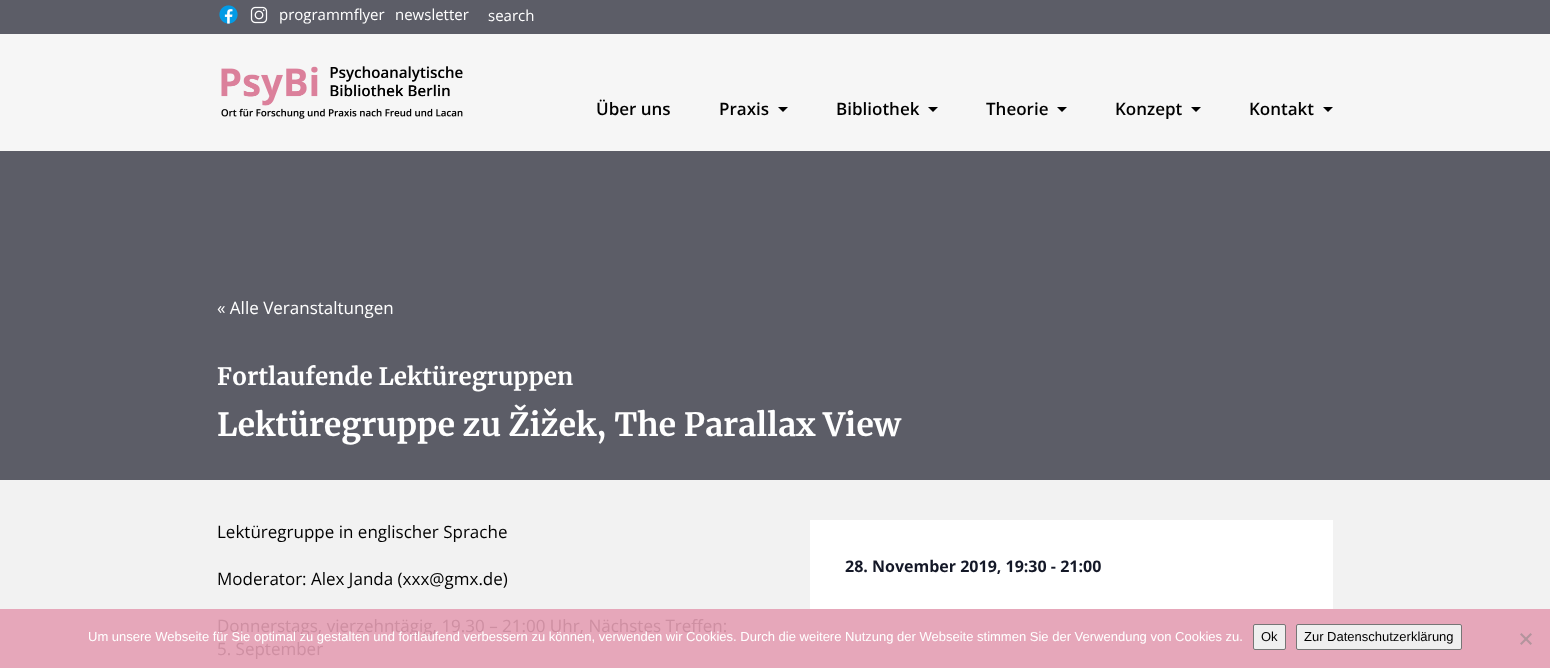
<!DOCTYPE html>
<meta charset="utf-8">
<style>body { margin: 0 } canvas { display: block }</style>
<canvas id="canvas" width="1550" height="668"></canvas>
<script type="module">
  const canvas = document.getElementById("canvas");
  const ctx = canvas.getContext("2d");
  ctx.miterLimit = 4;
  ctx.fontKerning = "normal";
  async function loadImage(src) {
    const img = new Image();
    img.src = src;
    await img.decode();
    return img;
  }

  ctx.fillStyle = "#f6f6f6";
  ctx.fillRect(0, 0, 1550, 668);
  ctx.fillStyle = "#5c5d67";
  ctx.fillRect(0, 0, 1550, 34);
  ctx.drawImage(await loadImage("img1.png"), 219, 5, 19, 19);
  ctx.drawImage(await loadImage("img2.png"), 250, 6, 18, 18);
  ctx.font = "15px Open Sans";
  ctx.fillStyle = "#ffffff";
  ctx.fillText("programmflyer", 279, 20);
  ctx.fillText("newsletter", 395, 20);
  ctx.fillText("search", 488, 21);
  ctx.drawImage(await loadImage("img3.png"), 221, 66, 242, 53);
  ctx.font = "600 17px Open Sans";
  ctx.fillStyle = "#000000";
  ctx.fillText("Über uns", 596, 115);
  ctx.fillText("Praxis", 719, 115);
  ctx.beginPath();
  ctx.moveTo(778, 107);
  ctx.lineTo(788, 107);
  ctx.lineTo(783, 112);
  ctx.closePath();
  ctx.fill();
  ctx.fillText("Bibliothek", 836, 115);
  ctx.beginPath();
  ctx.moveTo(928, 107);
  ctx.lineTo(938, 107);
  ctx.lineTo(933, 112);
  ctx.closePath();
  ctx.fill();
  ctx.fillText("Theorie", 986, 115);
  ctx.beginPath();
  ctx.moveTo(1057, 107);
  ctx.lineTo(1067, 107);
  ctx.lineTo(1062, 112);
  ctx.closePath();
  ctx.fill();
  ctx.fillText("Konzept", 1115, 115);
  ctx.beginPath();
  ctx.moveTo(1191, 107);
  ctx.lineTo(1201, 107);
  ctx.lineTo(1196, 112);
  ctx.closePath();
  ctx.fill();
  ctx.fillText("Kontakt", 1249, 115);
  ctx.beginPath();
  ctx.moveTo(1323, 107);
  ctx.lineTo(1333, 107);
  ctx.lineTo(1328, 112);
  ctx.closePath();
  ctx.fill();
  ctx.fillStyle = "#5c5d67";
  ctx.fillRect(0, 151, 1550, 329);
  ctx.font = "17px Open Sans";
  ctx.fillStyle = "#ffffff";
  ctx.fillText("« Alle Veranstaltungen", 217, 314);
  ctx.font = "bold 24px Merriweather";
  ctx.fillText("Fortlaufende Lektüregruppen", 217, 385);
  ctx.font = "bold 32px Merriweather";
  ctx.fillText("Lektüregruppe zu Žižek, The Parallax View", 217, 436);
  ctx.fillStyle = "#f2f2f2";
  ctx.fillRect(0, 480, 1550, 129);
  ctx.fillStyle = "#e6a7ba";
  ctx.fillRect(0, 609, 1550, 59);
  ctx.font = "17px Open Sans";
  ctx.fillStyle = "#000000";
  ctx.fillText("Lektüregruppe in englischer Sprache", 217, 538);
  ctx.fillText("Moderator: Alex Janda (xxx@gmx.de)", 217, 585);
  ctx.fillStyle = "#ce8fa2";
  ctx.fillText("Donnerstags, vierzehntägig, 19.30 – 21:00 Uhr, Nächstes Treffen:", 217, 632);
  ctx.fillText("5. September", 217, 655);
  ctx.fillStyle = "#ffffff";
  ctx.fillRect(810, 520, 523, 89);
  ctx.font = "bold 16px Open Sans";
  ctx.fillStyle = "#141827";
  ctx.fillText("28. November 2019, 19:30 - 21:00", 845, 572);
  ctx.font = "13px Liberation Sans";
  ctx.fillStyle = "#ffffff";
  ctx.fillText("Um unsere Webseite für Sie optimal zu gestalten und fortlaufend verbessern zu können, verwenden wir Cookies. Durch die weitere Nutzung der Webseite stimmen Sie der Verwendung von Cookies zu.", 88, 641);
  ctx.fillStyle = "#efefef";
  ctx.beginPath();
  ctx.roundRect(1253.5, 624.5, 32, 25, 1.5);
  ctx.fill();
  ctx.strokeStyle = "#767676";
  ctx.stroke();
  ctx.fillStyle = "#000000";
  ctx.fillText("Ok", 1261, 641);
  ctx.fillStyle = "#efefef";
  ctx.beginPath();
  ctx.roundRect(1296.5, 624.5, 165, 25, 1.5);
  ctx.fill();
  ctx.stroke();
  ctx.fillStyle = "#000000";
  ctx.fillText("Zur Datenschutzerklärung", 1304, 641);
  ctx.fillStyle = "#b3949d";
  ctx.beginPath();
  ctx.moveTo(1530.5, 633);
  ctx.lineTo(1532, 634.5);
  ctx.lineTo(1521.5, 645);
  ctx.lineTo(1520, 643.5);
  ctx.closePath();
  ctx.fill();
  ctx.beginPath();
  ctx.moveTo(1520, 634.5);
  ctx.lineTo(1521.5, 633);
  ctx.lineTo(1532, 643.5);
  ctx.lineTo(1530.5, 645);
  ctx.closePath();
  ctx.fill();
</script>
